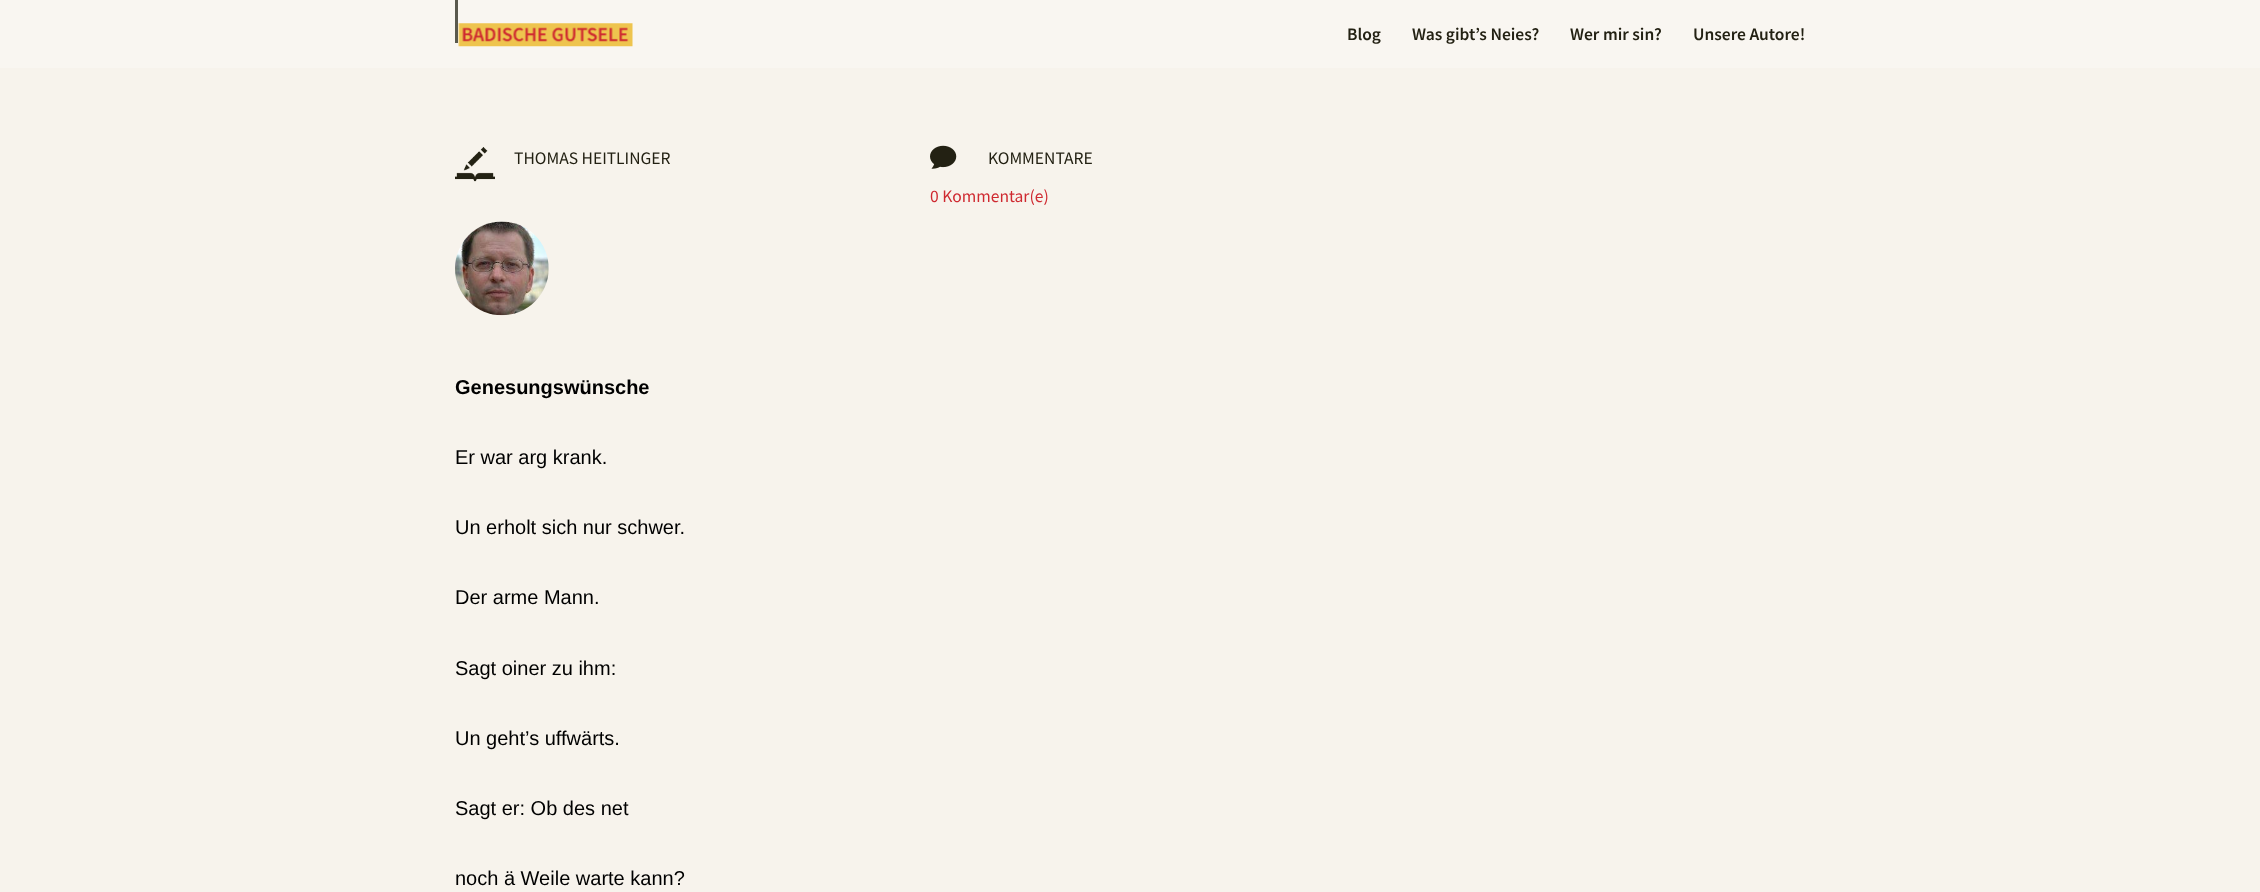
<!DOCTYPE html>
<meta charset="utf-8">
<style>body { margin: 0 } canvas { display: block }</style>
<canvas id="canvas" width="2260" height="892"></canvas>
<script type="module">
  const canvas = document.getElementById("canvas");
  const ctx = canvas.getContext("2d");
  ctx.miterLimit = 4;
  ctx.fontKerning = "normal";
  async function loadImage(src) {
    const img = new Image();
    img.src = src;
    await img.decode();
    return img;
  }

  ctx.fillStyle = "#f9f6f1";
  ctx.fillRect(0, 0, 2260, 892);
  ctx.drawImage(await loadImage("img1.png"), 458, 23, 175, 24);
  ctx.font = "600 17.5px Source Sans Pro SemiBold";
  ctx.fillStyle = "#232113";
  ctx.fillText("Blog", 1347, 40);
  ctx.fillText("Was gibt’s Neies?", 1412, 40);
  ctx.fillText("Wer mir sin?", 1570, 40);
  ctx.fillText("Unsere Autore!", 1693, 40);
  ctx.fillStyle = "#5a594e";
  ctx.fillRect(455, 0, 3, 43);
  ctx.fillStyle = "#f7f3ec";
  ctx.fillRect(0, 68, 2260, 824);
  ctx.drawImage(await loadImage("img2.png"), 455, 147, 40, 35);
  ctx.font = "17.5px Source Sans Pro";
  ctx.fillStyle = "#232113";
  ctx.fillText("THOMAS HEITLINGER", 514, 164);
  ctx.drawImage(await loadImage("img3.png"), 455, 221, 94, 95);
  ctx.drawImage(await loadImage("img4.png"), 930, 145, 27, 24);
  ctx.fillText("KOMMENTARE", 988, 164);
  ctx.fillStyle = "#cf2930";
  ctx.fillText("0 Kommentar(e)", 930, 202);
  ctx.font = "bold 20px Liberation Sans";
  ctx.fillStyle = "#000000";
  ctx.fillText("Genesungswünsche", 455, 394);
  ctx.font = "20px Liberation Sans";
  ctx.fillText("Er war arg krank.", 455, 464);
  ctx.fillText("Un erholt sich nur schwer.", 455, 534);
  ctx.fillText("Der arme Mann.", 455, 604);
  ctx.fillText("Sagt oiner zu ihm:", 455, 675);
  ctx.fillText("Un geht’s uffwärts.", 455, 745);
  ctx.fillText("Sagt er: Ob des net", 455, 815);
  ctx.fillText("noch ä Weile warte kann?", 455, 885);
</script>
